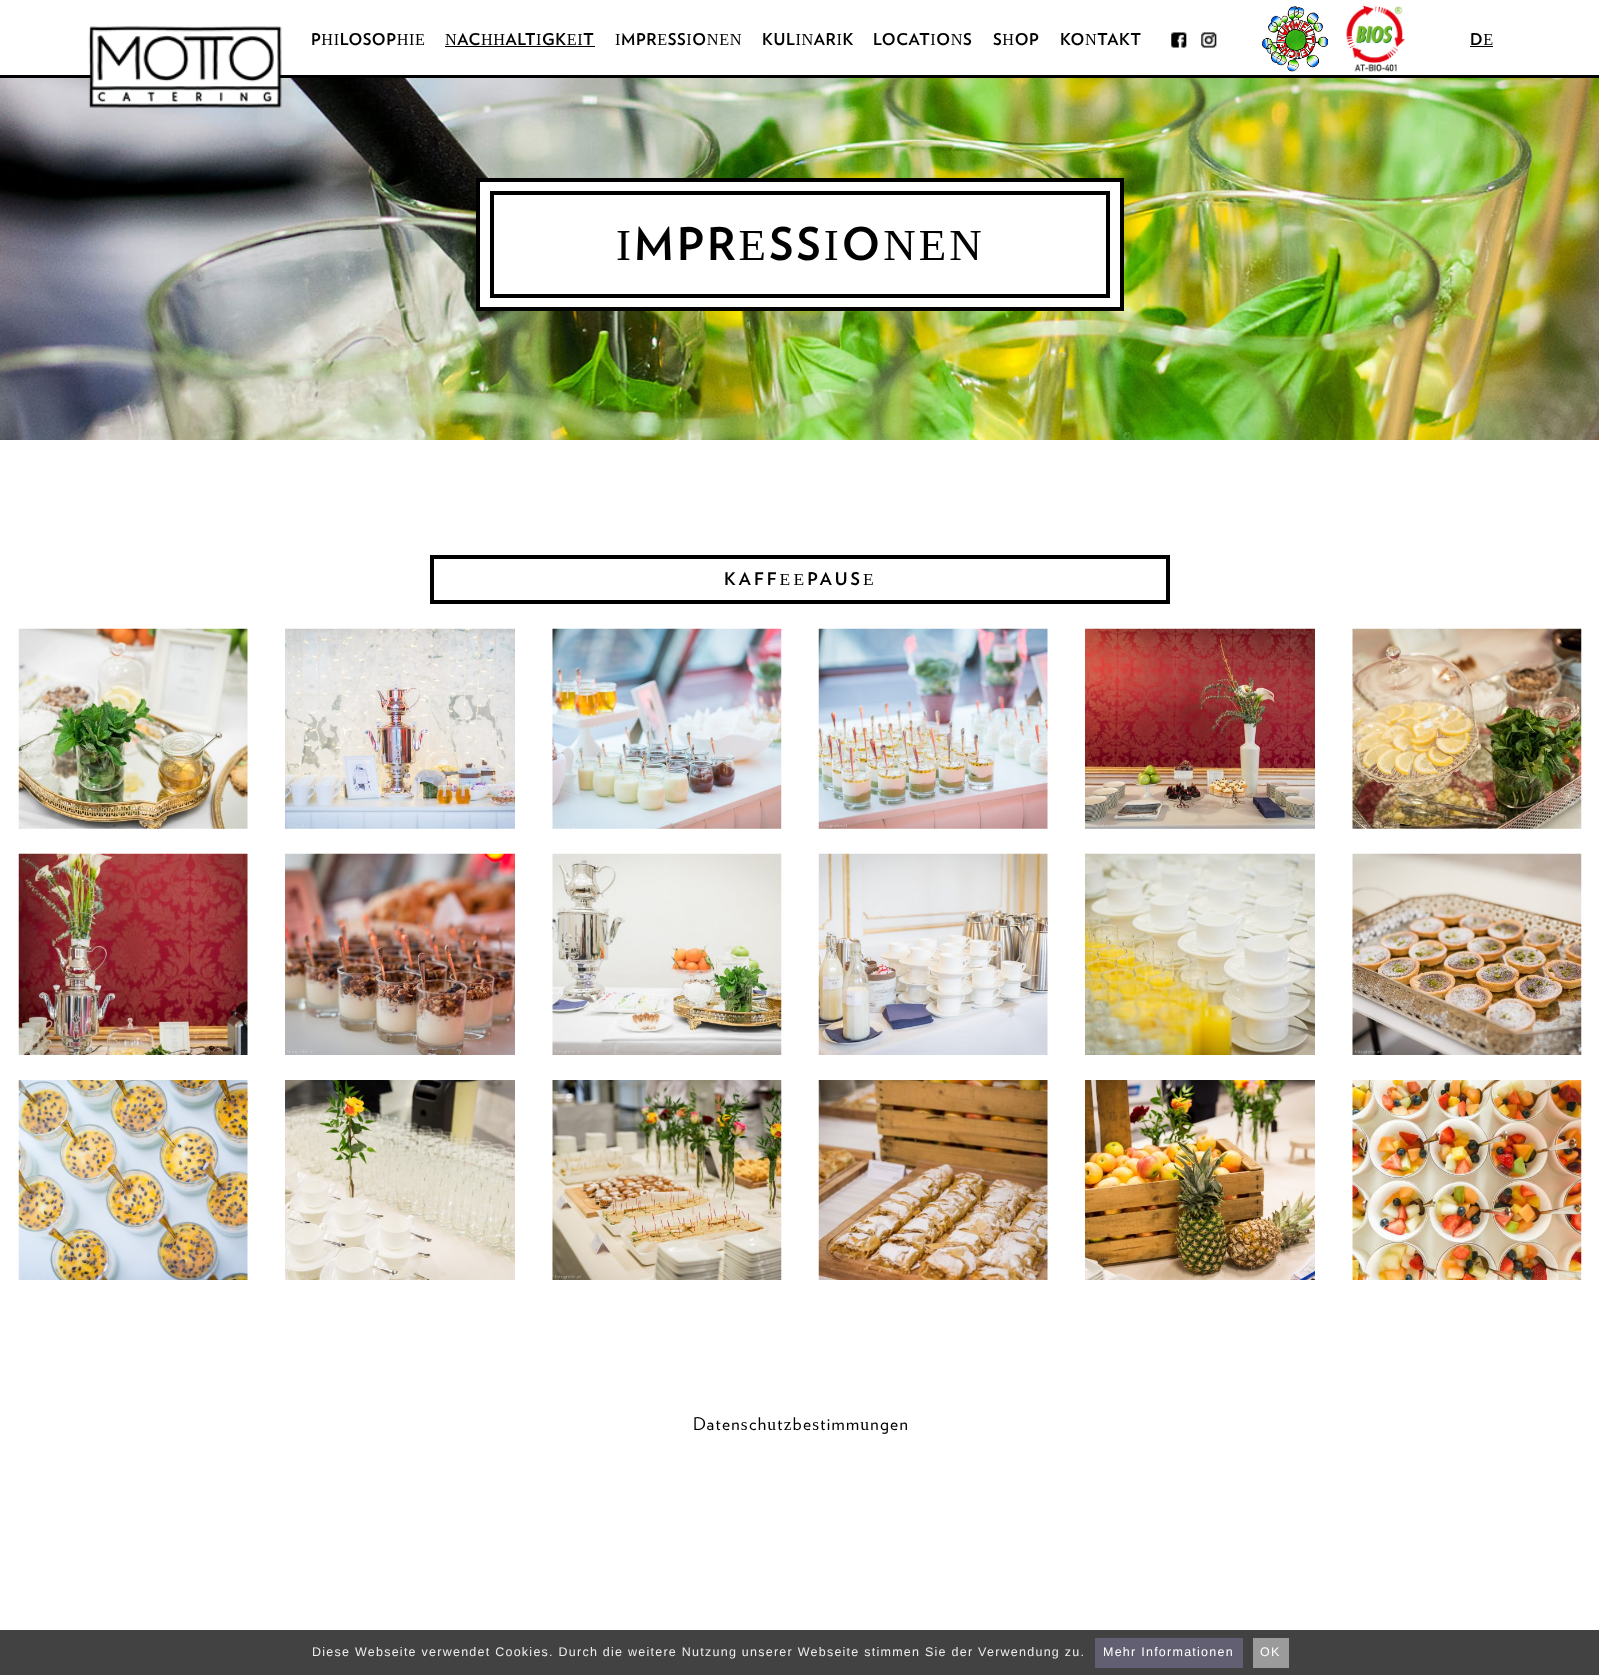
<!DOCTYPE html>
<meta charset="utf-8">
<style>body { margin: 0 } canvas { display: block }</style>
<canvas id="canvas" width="1599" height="1675"></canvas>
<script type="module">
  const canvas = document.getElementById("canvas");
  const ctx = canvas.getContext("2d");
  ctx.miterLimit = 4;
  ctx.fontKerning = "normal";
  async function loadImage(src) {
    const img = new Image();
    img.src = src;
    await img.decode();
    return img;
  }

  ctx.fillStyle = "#ffffff";
  ctx.fillRect(0, 0, 1599, 1675);
  ctx.fillStyle = "#000000";
  ctx.fillRect(0, 75, 1599, 3);
  ctx.drawImage(await loadImage("img6.png"), 0, 78, 1599, 362);
  ctx.drawImage(await loadImage("img1.png"), 88, 26, 194, 82);
  ctx.letterSpacing = "0.6px";
  ctx.font = "16.25px 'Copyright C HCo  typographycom'";
  ctx.fillText("PHILOSOPHIE", 311, 45);
  ctx.fillText("NACHHALTIGKEIT", 445, 45);
  ctx.fillRect(445, 46, 150, 1);
  ctx.fillText("IMPRESSIONEN", 615, 45);
  ctx.fillText("KULINARIK", 762, 45);
  ctx.fillText("LOCATIONS", 873, 45);
  ctx.fillText("SHOP", 993, 45);
  ctx.fillText("KONTAKT", 1060, 45);
  ctx.drawImage(await loadImage("img2.png"), 1171, 32, 16, 16);
  ctx.drawImage(await loadImage("img3.png"), 1201, 32, 16, 16);
  ctx.drawImage(await loadImage("img4.png"), 1261, 6, 68, 66);
  ctx.drawImage(await loadImage("img5.png"), 1346, 5, 59, 67);
  ctx.fillText("DE", 1470, 45);
  ctx.fillRect(1470, 46, 23, 1);
  ctx.fillStyle = "#ffffff";
  ctx.beginPath();
  ctx.rect(478, 180, 644, 129);
  ctx.fill();
  ctx.strokeStyle = "#000000";
  ctx.lineWidth = 4;
  ctx.stroke();
  ctx.strokeRect(492, 193, 616, 103);
  ctx.letterSpacing = "3.1px";
  ctx.font = "45px 'Copyright C HCo  typographycom'";
  ctx.fillStyle = "#000000";
  ctx.fillText("IMPRESSIONEN", 616, 260);
  ctx.strokeRect(432, 557, 736, 45);
  ctx.font = "17.5px 'Copyright C HCo  typographycom'";
  ctx.fillText("KAFFEEPAUSE", 724, 585);
  ctx.drawImage(await loadImage("img7.png"), 18, 628, 230, 201);
  ctx.drawImage(await loadImage("img8.png"), 285, 628, 230, 201);
  ctx.drawImage(await loadImage("img9.png"), 552, 628, 230, 201);
  ctx.drawImage(await loadImage("img10.png"), 818, 628, 230, 201);
  ctx.drawImage(await loadImage("img11.png"), 1085, 628, 230, 201);
  ctx.drawImage(await loadImage("img12.png"), 1352, 628, 230, 201);
  ctx.drawImage(await loadImage("img13.png"), 18, 853, 230, 202);
  ctx.drawImage(await loadImage("img14.png"), 285, 853, 230, 202);
  ctx.drawImage(await loadImage("img15.png"), 552, 853, 230, 202);
  ctx.drawImage(await loadImage("img16.png"), 818, 853, 230, 202);
  ctx.drawImage(await loadImage("img17.png"), 1085, 853, 230, 202);
  ctx.drawImage(await loadImage("img18.png"), 1352, 853, 230, 202);
  ctx.drawImage(await loadImage("img19.png"), 18, 1080, 230, 200);
  ctx.drawImage(await loadImage("img20.png"), 285, 1080, 230, 200);
  ctx.drawImage(await loadImage("img21.png"), 552, 1080, 230, 200);
  ctx.drawImage(await loadImage("img22.png"), 818, 1080, 230, 200);
  ctx.drawImage(await loadImage("img23.png"), 1085, 1080, 230, 200);
  ctx.drawImage(await loadImage("img24.png"), 1352, 1080, 230, 200);
  ctx.letterSpacing = "1.25px";
  ctx.font = "300 17.5px 'Copyright C HCo  typographycom'";
  ctx.fillText("Datenschutzbestimmungen", 693, 1430);
  ctx.fillStyle = "#424242";
  ctx.fillRect(0, 1630, 1599, 45);
  ctx.font = "12.5px Liberation Sans";
  ctx.fillStyle = "#eeeeee";
  ctx.fillText("Diese Webseite verwendet Cookies. Durch die weitere Nutzung unserer Webseite stimmen Sie der Verwendung zu.", 312, 1656);
  ctx.fillStyle = "#615f71";
  ctx.fillRect(1095, 1638, 148, 30);
  ctx.fillStyle = "#ffffff";
  ctx.fillText("Mehr Informationen", 1103, 1656);
  ctx.fillStyle = "#9c9b9b";
  ctx.fillRect(1253, 1638, 36, 30);
  ctx.fillStyle = "#ffffff";
  ctx.fillText("OK", 1260, 1656);
</script>
